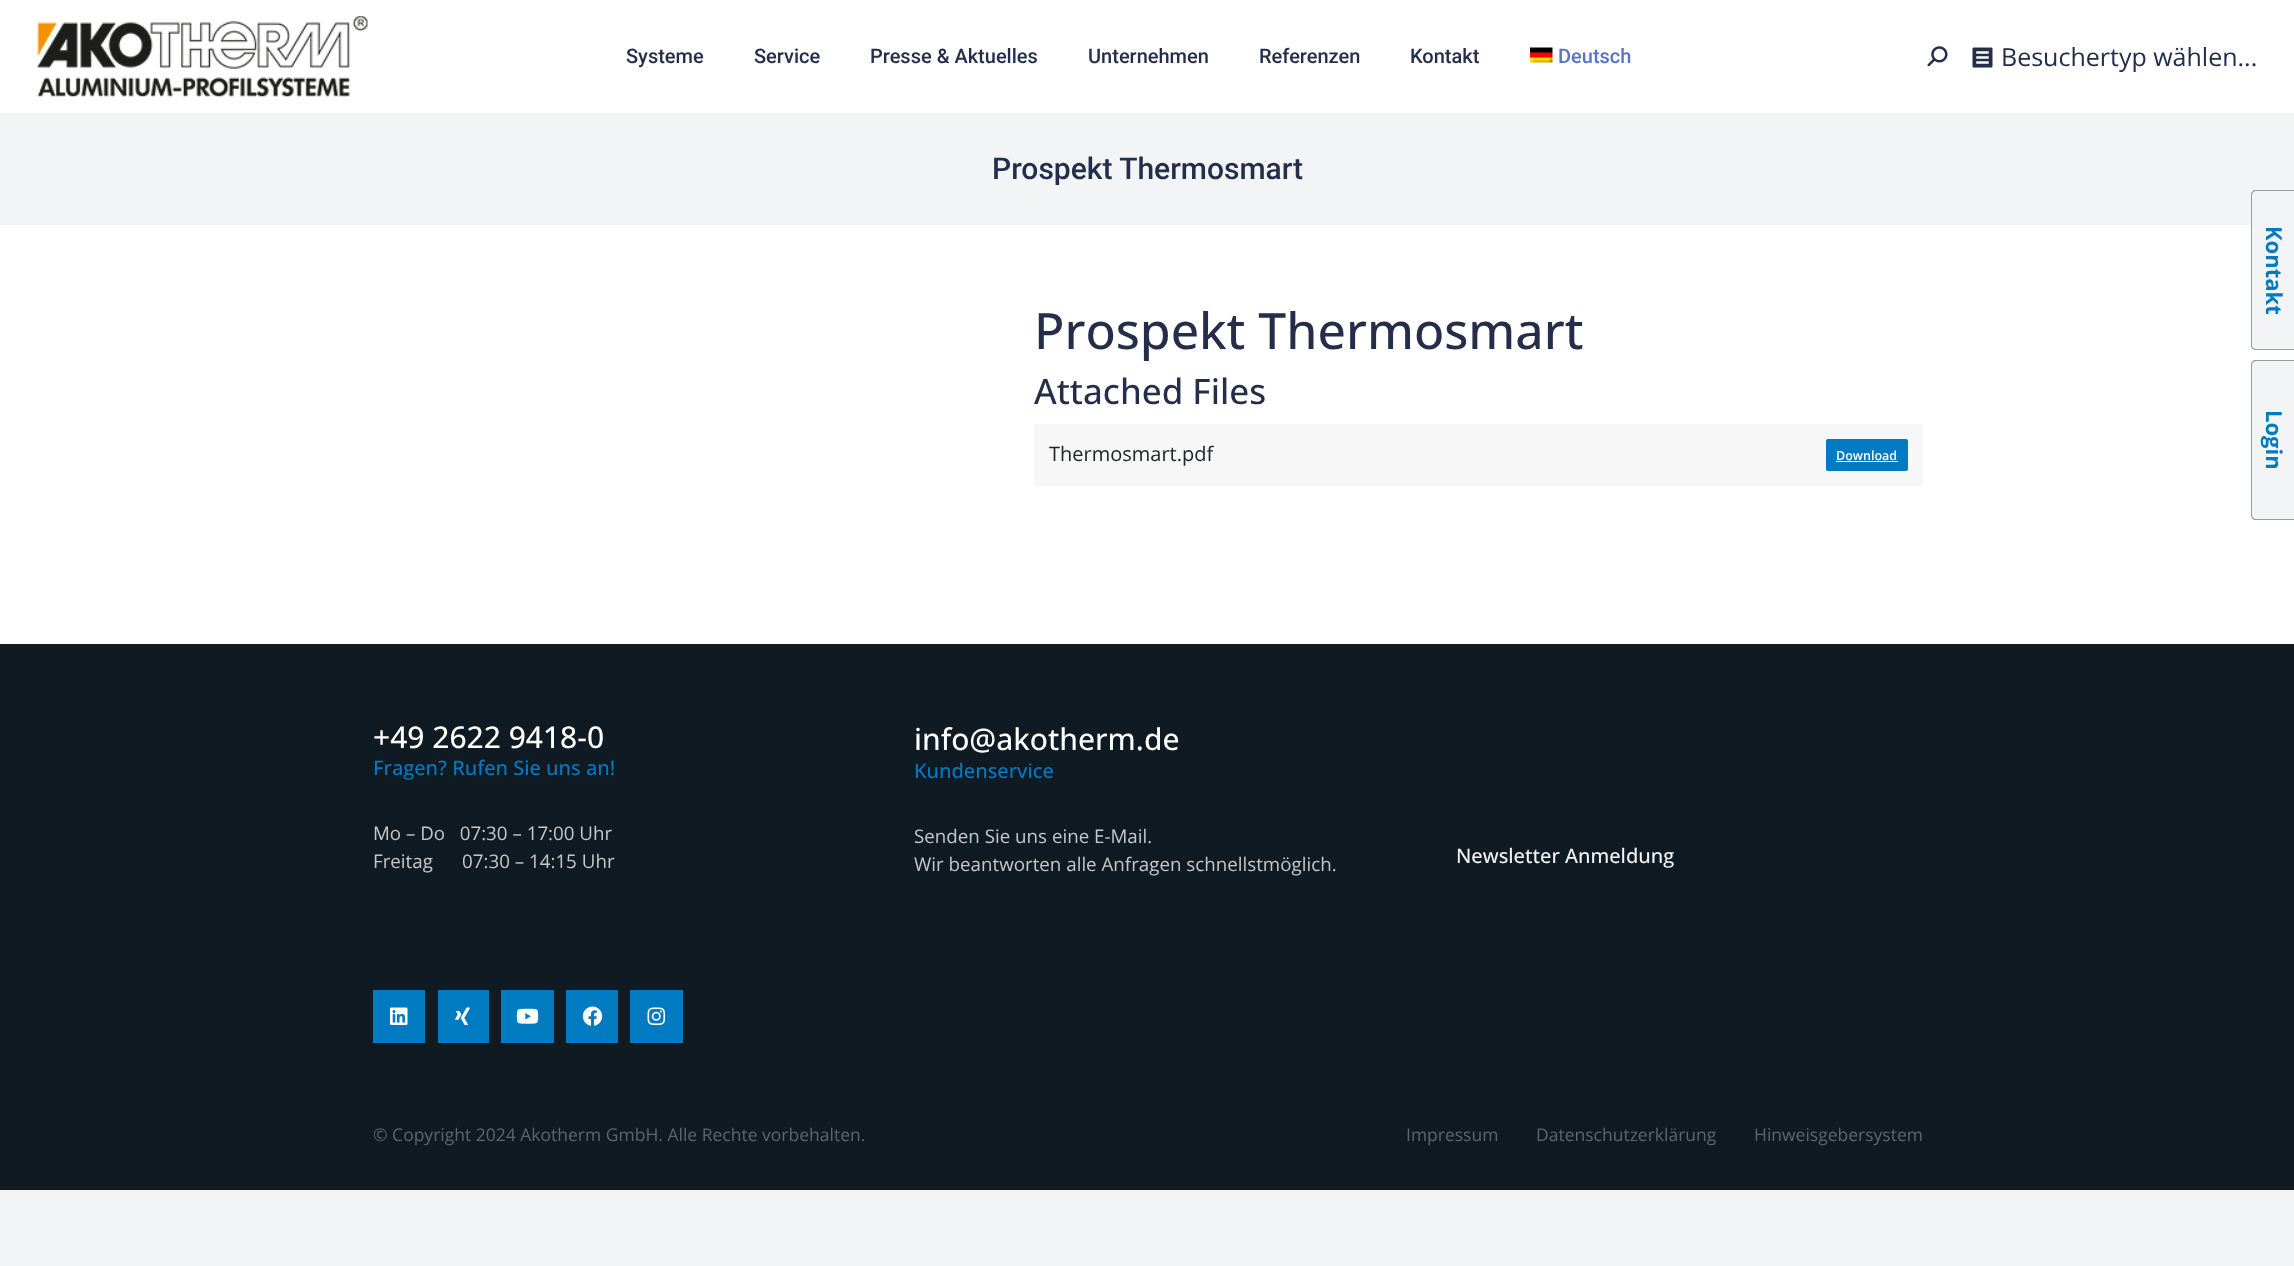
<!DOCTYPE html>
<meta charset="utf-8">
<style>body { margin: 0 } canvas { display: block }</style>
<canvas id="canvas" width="2294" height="1266"></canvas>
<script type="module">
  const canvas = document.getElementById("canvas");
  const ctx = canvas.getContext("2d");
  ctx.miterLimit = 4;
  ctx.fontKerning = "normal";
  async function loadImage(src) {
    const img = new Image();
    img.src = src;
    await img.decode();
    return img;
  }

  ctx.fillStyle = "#f2f4f6";
  ctx.fillRect(0, 0, 2294, 1266);
  ctx.fillStyle = "#ffffff";
  ctx.fillRect(0, 0, 2294, 644);
  ctx.drawImage(await loadImage("img1.png"), 37, 16, 331, 81);
  ctx.font = "500 20px Roboto";
  ctx.fillStyle = "#242d4a";
  ctx.fillText("Systeme", 626, 63);
  ctx.fillText("Service", 754, 63);
  ctx.fillText("Presse & Aktuelles", 870, 63);
  ctx.fillText("Unternehmen", 1088, 63);
  ctx.fillText("Referenzen", 1259, 63);
  ctx.fillText("Kontakt", 1410, 63);
  ctx.drawImage(await loadImage("img2.png"), 1530, 47, 23, 16);
  ctx.fillStyle = "#5a74c4";
  ctx.fillText("Deutsch", 1558, 63);
  ctx.drawImage(await loadImage("img3.png"), 1927, 46, 21, 21);
  ctx.drawImage(await loadImage("img4.png"), 1972, 47, 21, 21);
  ctx.font = "25px Open Sans";
  ctx.fillStyle = "#242d4a";
  ctx.fillText("Besuchertyp wählen...", 2001, 66);
  ctx.fillStyle = "#f2f4f6";
  ctx.fillRect(0, 113, 2294, 112);
  ctx.font = "500 30px Roboto";
  ctx.fillStyle = "#242d4a";
  ctx.fillText("Prospekt Thermosmart", 992, 179);
  ctx.font = "500 50px Open Sans";
  ctx.fillText("Prospekt Thermosmart", 1034, 349);
  ctx.font = "500 35px Open Sans";
  ctx.fillText("Attached Files", 1034, 404);
  ctx.fillStyle = "#f7f7f7";
  ctx.fillRect(1034, 424, 889, 62);
  ctx.font = "20px Open Sans";
  ctx.fillStyle = "#212529";
  ctx.fillText("Thermosmart.pdf", 1049, 461);
  ctx.fillStyle = "#007ac2";
  ctx.beginPath();
  ctx.roundRect(1826, 439, 82, 32, 2);
  ctx.fill();
  ctx.font = "600 12.5px Open Sans";
  ctx.fillStyle = "#ffffff";
  ctx.fillText("Download", 1836, 460);
  ctx.fillRect(1836, 461, 62, 1);
  ctx.fillStyle = "#0f1a23";
  ctx.fillRect(0, 644, 2294, 546);
  ctx.font = "500 30px Open Sans";
  ctx.fillStyle = "#ffffff";
  ctx.fillText("+49 2622 9418-0", 373, 748);
  ctx.font = "500 20px Open Sans";
  ctx.fillStyle = "#007bc2";
  ctx.fillText("Fragen? Rufen Sie uns an!", 373, 775);
  ctx.font = "18.75px Open Sans";
  ctx.fillStyle = "#c5c8ca";
  ctx.fillText("Mo – Do   07:30 – 17:00 Uhr", 373, 840);
  ctx.fillText("Freitag      07:30 – 14:15 Uhr", 373, 868);
  ctx.fillStyle = "#007bc2";
  ctx.fillRect(373, 990, 52, 53);
  ctx.drawImage(await loadImage("img5.png"), 390, 1007, 18, 18);
  ctx.fillRect(438, 990, 51, 53);
  ctx.drawImage(await loadImage("img6.png"), 455, 1007, 15, 18);
  ctx.fillRect(501, 990, 53, 53);
  ctx.drawImage(await loadImage("img7.png"), 516, 1008, 23, 16);
  ctx.fillRect(566, 990, 52, 53);
  ctx.drawImage(await loadImage("img8.png"), 582, 1006, 21, 20);
  ctx.fillRect(630, 990, 53, 53);
  ctx.drawImage(await loadImage("img9.png"), 647, 1007, 19, 18);
  ctx.font = "500 30px Open Sans";
  ctx.fillStyle = "#ffffff";
  ctx.fillText("info@akotherm.de", 914, 750);
  ctx.font = "500 20px Open Sans";
  ctx.fillStyle = "#007bc2";
  ctx.fillText("Kundenservice", 914, 778);
  ctx.font = "18.75px Open Sans";
  ctx.fillStyle = "#c5c8ca";
  ctx.fillText("Senden Sie uns eine E-Mail.", 914, 843);
  ctx.fillText("Wir beantworten alle Anfragen schnellstmöglich.", 914, 871);
  ctx.font = "500 20px Open Sans";
  ctx.fillStyle = "#f2f4f6";
  ctx.fillText("Newsletter Anmeldung", 1456, 863);
  ctx.font = "17.5px Open Sans";
  ctx.fillStyle = "#5e666c";
  ctx.fillText("© Copyright 2024 Akotherm GmbH. Alle Rechte vorbehalten.", 373, 1141);
  ctx.fillText("Impressum", 1406, 1141);
  ctx.fillText("Datenschutzerklärung", 1536, 1141);
  ctx.fillText("Hinweisgebersystem", 1754, 1141);
  ctx.fillStyle = "#f2f4f6";
  ctx.beginPath();
  ctx.moveTo(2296, 190);
  ctx.lineTo(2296, 350);
  ctx.lineTo(2256, 350);
  ctx.bezierCurveTo(2253, 350, 2251, 348, 2251, 345);
  ctx.lineTo(2251, 195);
  ctx.bezierCurveTo(2251, 192, 2253, 190, 2256, 190);
  ctx.closePath();
  ctx.fill();
  ctx.fillStyle = "rgba(18, 18, 18, 0.39)";
  ctx.beginPath();
  ctx.moveTo(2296, 190);
  ctx.lineTo(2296, 350);
  ctx.lineTo(2256, 350);
  ctx.bezierCurveTo(2253, 350, 2251, 348, 2251, 345);
  ctx.lineTo(2251, 195);
  ctx.bezierCurveTo(2251, 192, 2253, 190, 2256, 190);
  ctx.closePath();
  ctx.moveTo(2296, 191);
  ctx.lineTo(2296, 349);
  ctx.lineTo(2256, 349);
  ctx.bezierCurveTo(2254, 349, 2252, 347, 2252, 345);
  ctx.lineTo(2252, 195);
  ctx.bezierCurveTo(2252, 193, 2254, 191, 2256, 191);
  ctx.closePath();
  ctx.fill("evenodd");
  ctx.font = "bold 22px Open Sans";
  ctx.fillStyle = "#007bc2";
  ctx.save();
  ctx.translate(2266, 226);
  ctx.rotate(90 * Math.PI / 180);
  ctx.fillText("Kontakt", 0, 0);
  ctx.restore();
  ctx.fillStyle = "#f2f4f6";
  ctx.beginPath();
  ctx.moveTo(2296, 360);
  ctx.lineTo(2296, 520);
  ctx.lineTo(2256, 520);
  ctx.bezierCurveTo(2253, 520, 2251, 518, 2251, 515);
  ctx.lineTo(2251, 365);
  ctx.bezierCurveTo(2251, 362, 2253, 360, 2256, 360);
  ctx.closePath();
  ctx.fill();
  ctx.fillStyle = "rgba(18, 18, 18, 0.39)";
  ctx.beginPath();
  ctx.moveTo(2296, 360);
  ctx.lineTo(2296, 520);
  ctx.lineTo(2256, 520);
  ctx.bezierCurveTo(2253, 520, 2251, 518, 2251, 515);
  ctx.lineTo(2251, 365);
  ctx.bezierCurveTo(2251, 362, 2253, 360, 2256, 360);
  ctx.closePath();
  ctx.moveTo(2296, 361);
  ctx.lineTo(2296, 519);
  ctx.lineTo(2256, 519);
  ctx.bezierCurveTo(2254, 519, 2252, 517, 2252, 515);
  ctx.lineTo(2252, 365);
  ctx.bezierCurveTo(2252, 363, 2254, 361, 2256, 361);
  ctx.closePath();
  ctx.fill("evenodd");
  ctx.fillStyle = "#007bc2";
  ctx.save();
  ctx.translate(2266, 410);
  ctx.rotate(90 * Math.PI / 180);
  ctx.fillText("Login", 0, 0);
  ctx.restore();
</script>
